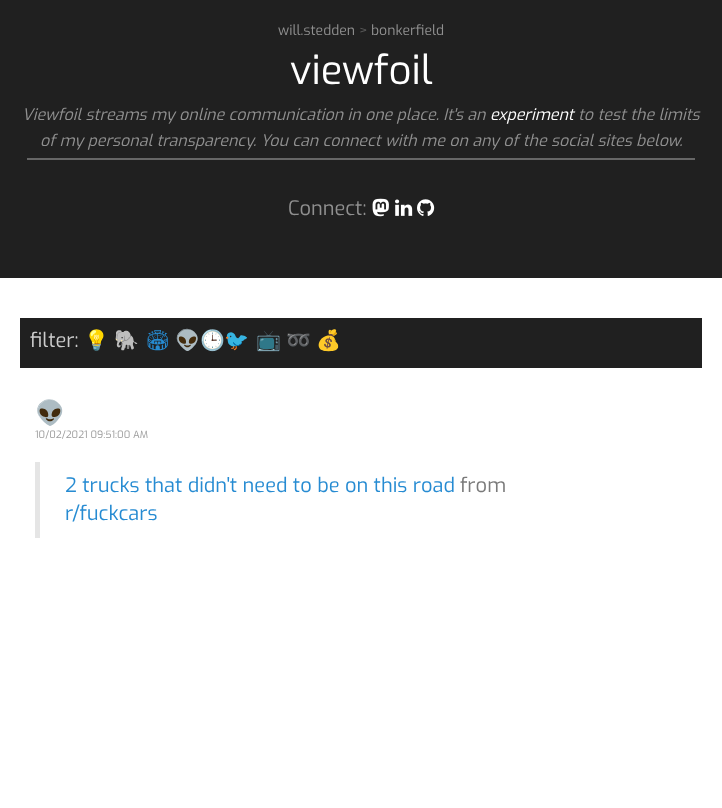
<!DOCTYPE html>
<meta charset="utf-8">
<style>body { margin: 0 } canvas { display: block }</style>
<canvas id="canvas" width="722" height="808"></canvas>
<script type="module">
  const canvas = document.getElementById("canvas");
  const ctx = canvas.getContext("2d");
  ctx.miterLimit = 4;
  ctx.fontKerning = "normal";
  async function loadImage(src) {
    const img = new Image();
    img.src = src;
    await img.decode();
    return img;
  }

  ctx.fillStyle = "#ffffff";
  ctx.fillRect(0, 0, 722, 808);
  ctx.fillStyle = "#202020";
  ctx.fillRect(0, 0, 722, 278);
  ctx.font = "14px Exo";
  ctx.fillStyle = "#909090";
  ctx.fillText("will.stedden", 278, 35);
  ctx.fillStyle = "#585858";
  ctx.fillText(">", 359, 35);
  ctx.fillStyle = "#909090";
  ctx.fillText("bonkerfield", 371, 35);
  ctx.font = "40px Exo";
  ctx.fillStyle = "#ffffff";
  ctx.fillText("viewfoil", 290, 84);
  ctx.font = "italic 16px Exo";
  ctx.fillStyle = "#909090";
  ctx.fillText("Viewfoil streams my online communication in one place. It's an", 22, 120);
  ctx.fillStyle = "#ffffff";
  ctx.fillText("experiment", 490, 120);
  ctx.fillStyle = "#909090";
  ctx.fillText("to test the limits", 578, 120);
  ctx.fillText("of my personal transparency. You can connect with me on any of the social sites below.", 40, 146);
  ctx.fillStyle = "#666666";
  ctx.fillRect(27, 158, 668, 2);
  ctx.font = "20px Exo";
  ctx.fillStyle = "#909090";
  ctx.fillText("Connect:", 288, 215);
  ctx.drawImage(await loadImage("img1.png"), 372, 198, 17, 19);
  ctx.drawImage(await loadImage("img2.png"), 395, 199, 18, 17);
  ctx.drawImage(await loadImage("img3.png"), 417, 199, 18, 17);
  ctx.fillStyle = "#202020";
  ctx.fillRect(20, 318, 682, 50);
  ctx.fillStyle = "#cccccc";
  ctx.fillText("filter:", 30, 347);
  ctx.font = "20px Noto Color Emoji";
  ctx.fillStyle = "#268bd2";
  ctx.fillText("💡", 84, 347);
  ctx.fillText("🐘", 114, 347);
  ctx.font = "20px Noto Emoji";
  ctx.fillText("🏟", 145, 347);
  ctx.font = "20px Noto Color Emoji";
  ctx.fillText("👽🕒🐦", 175, 347);
  ctx.fillText("📺", 256, 347);
  ctx.fillText("➿", 286, 347);
  ctx.fillText("💰", 316, 347);
  ctx.font = "bold 24px Noto Color Emoji";
  ctx.fillStyle = "#303030";
  ctx.fillText("👽", 35, 421);
  ctx.font = "10px Exo";
  ctx.fillStyle = "#9a9a9a";
  ctx.fillText("10/02/2021 09:51:00 AM", 35, 438);
  ctx.fillStyle = "#e5e5e5";
  ctx.fillRect(35, 462, 5, 76);
  ctx.font = "20px Exo";
  ctx.fillStyle = "#268bd2";
  ctx.fillText("2 trucks that didn't need to be on this road", 65, 492);
  ctx.fillStyle = "#7a7a7a";
  ctx.fillText("from", 460, 492);
  ctx.fillStyle = "#268bd2";
  ctx.fillText("r/fuckcars", 65, 520);
</script>
